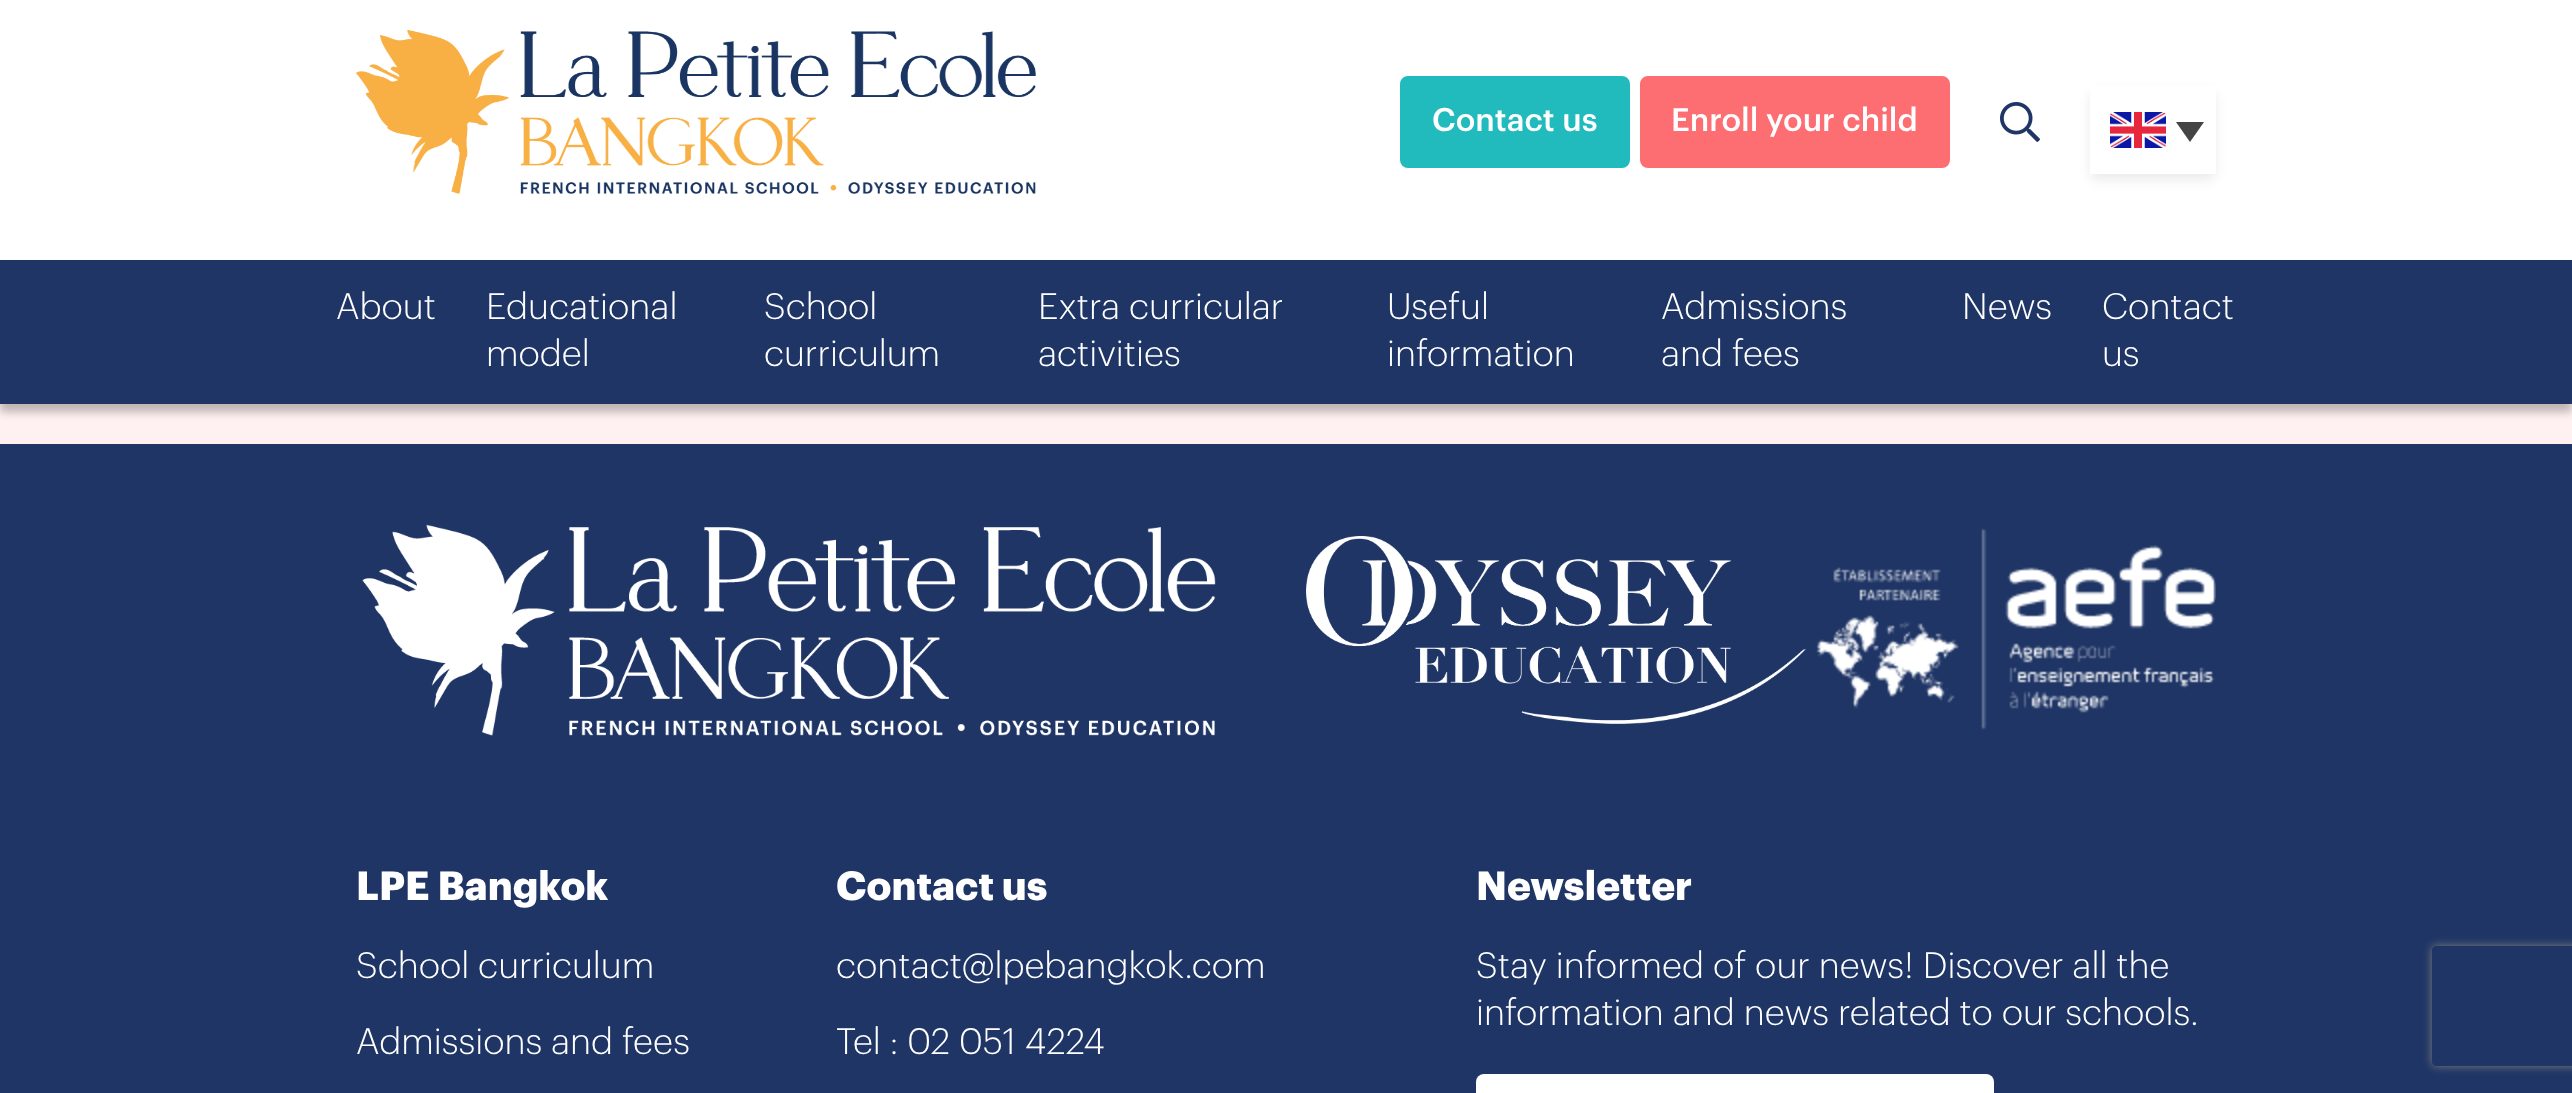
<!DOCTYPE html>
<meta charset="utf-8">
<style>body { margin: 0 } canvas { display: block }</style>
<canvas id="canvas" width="2572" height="1093"></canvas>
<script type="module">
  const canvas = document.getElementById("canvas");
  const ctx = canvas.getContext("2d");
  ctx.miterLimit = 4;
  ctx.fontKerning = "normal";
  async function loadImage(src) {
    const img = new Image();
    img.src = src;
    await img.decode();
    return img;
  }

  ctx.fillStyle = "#fff0f1";
  ctx.fillRect(0, 0, 2572, 1093);
  ctx.fillStyle = "#ffffff";
  ctx.fillRect(0, 0, 2572, 260);
  ctx.drawImage(await loadImage("img1.png"), 356, 30, 680, 164);
  ctx.fillStyle = "#21bbbe";
  ctx.beginPath();
  ctx.roundRect(1401, 77, 228, 90, 7);
  ctx.fill();
  ctx.strokeStyle = "#21bbbe";
  ctx.lineWidth = 2;
  ctx.stroke();
  ctx.font = "500 32px Graphik";
  ctx.fillStyle = "#ffffff";
  ctx.fillText("Contact us", 1432, 131);
  ctx.fillStyle = "#fd6e73";
  ctx.beginPath();
  ctx.roundRect(1641, 77, 308, 90, 7);
  ctx.fill();
  ctx.strokeStyle = "#fd6e73";
  ctx.stroke();
  ctx.fillStyle = "#ffffff";
  ctx.fillText("Enroll your child", 1671, 131);
  ctx.drawImage(await loadImage("img2.png"), 2000, 102, 40, 40);
  ctx.fillStyle = "rgba(0, 0, 0, 0.08)";
  ctx.filter = "blur(6px)";
  ctx.beginPath();
  ctx.roundRect(2090, 92, 126, 88, 8);
  ctx.fill();
  ctx.filter = "none";
  ctx.fillStyle = "#ffffff";
  ctx.fillRect(2090, 86, 126, 88);
  ctx.drawImage(await loadImage("img3.png"), 2110, 112, 56, 36);
  ctx.fillStyle = "#444444";
  ctx.beginPath();
  ctx.moveTo(2176, 122);
  ctx.lineTo(2204, 122);
  ctx.lineTo(2190, 142);
  ctx.closePath();
  ctx.fill();
  ctx.fillStyle = "rgba(0, 0, 0, 0.25)";
  ctx.filter = "blur(4px)";
  ctx.beginPath();
  ctx.rect(0, 268, 2572, 144);
  ctx.fill();
  ctx.filter = "none";
  ctx.fillStyle = "#1f3565";
  ctx.fillRect(0, 260, 2572, 144);
  ctx.font = "300 36px Graphik";
  ctx.fillStyle = "#ffffff";
  ctx.fillText("About", 336, 319);
  ctx.fillText("Educational", 486, 319);
  ctx.fillText("model", 486, 366);
  ctx.fillText("School", 764, 319);
  ctx.fillText("curriculum", 764, 366);
  ctx.fillText("Extra curricular", 1038, 319);
  ctx.fillText("activities", 1038, 366);
  ctx.fillText("Useful", 1387, 319);
  ctx.fillText("information", 1387, 366);
  ctx.fillText("Admissions", 1661, 319);
  ctx.fillText("and fees", 1661, 366);
  ctx.fillText("News", 1962, 319);
  ctx.fillText("Contact", 2102, 319);
  ctx.fillText("us", 2102, 366);
  ctx.fillStyle = "#1f3565";
  ctx.fillRect(0, 444, 2572, 649);
  ctx.drawImage(await loadImage("img4.png"), 362, 524, 854, 212);
  ctx.drawImage(await loadImage("img5.png"), 1306, 536, 500, 188);
  ctx.drawImage(await loadImage("img6.png"), 1816, 528, 400, 202);
  ctx.font = "bold 40px Graphik";
  ctx.fillStyle = "#ffffff";
  ctx.fillText("LPE Bangkok", 356, 900);
  ctx.font = "300 36px Graphik";
  ctx.fillText("School curriculum", 356, 978);
  ctx.fillText("Admissions and fees", 356, 1054);
  ctx.font = "bold 40px Graphik";
  ctx.fillText("Contact us", 836, 900);
  ctx.font = "300 36px Graphik";
  ctx.fillText("contact@lpebangkok.com", 836, 978);
  ctx.fillText("Tel : 02 051 4224", 836, 1054);
  ctx.font = "bold 40px Graphik";
  ctx.fillText("Newsletter", 1476, 900);
  ctx.font = "300 36px Graphik";
  ctx.fillText("Stay informed of our news! Discover all the", 1476, 978);
  ctx.fillText("information and news related to our schools.", 1476, 1025);
  ctx.beginPath();
  ctx.roundRect(1476, 1074, 518, 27, 8);
  ctx.fill();
  ctx.save();
  ctx.beginPath();
  ctx.moveTo(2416, 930);
  ctx.lineTo(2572, 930);
  ctx.lineTo(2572, 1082);
  ctx.lineTo(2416, 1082);
  ctx.closePath();
  ctx.moveTo(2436, 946);
  ctx.lineTo(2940, 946);
  ctx.bezierCurveTo(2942, 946, 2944, 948, 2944, 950);
  ctx.lineTo(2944, 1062);
  ctx.bezierCurveTo(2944, 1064, 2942, 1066, 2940, 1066);
  ctx.lineTo(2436, 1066);
  ctx.bezierCurveTo(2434, 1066, 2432, 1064, 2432, 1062);
  ctx.lineTo(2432, 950);
  ctx.bezierCurveTo(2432, 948, 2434, 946, 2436, 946);
  ctx.closePath();
  ctx.clip("evenodd");
  ctx.fillStyle = "#808080";
  ctx.filter = "blur(5px)";
  ctx.beginPath();
  ctx.roundRect(2432, 946, 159, 120, 4);
  ctx.fill();
  ctx.filter = "none";
  ctx.restore();
</script>
